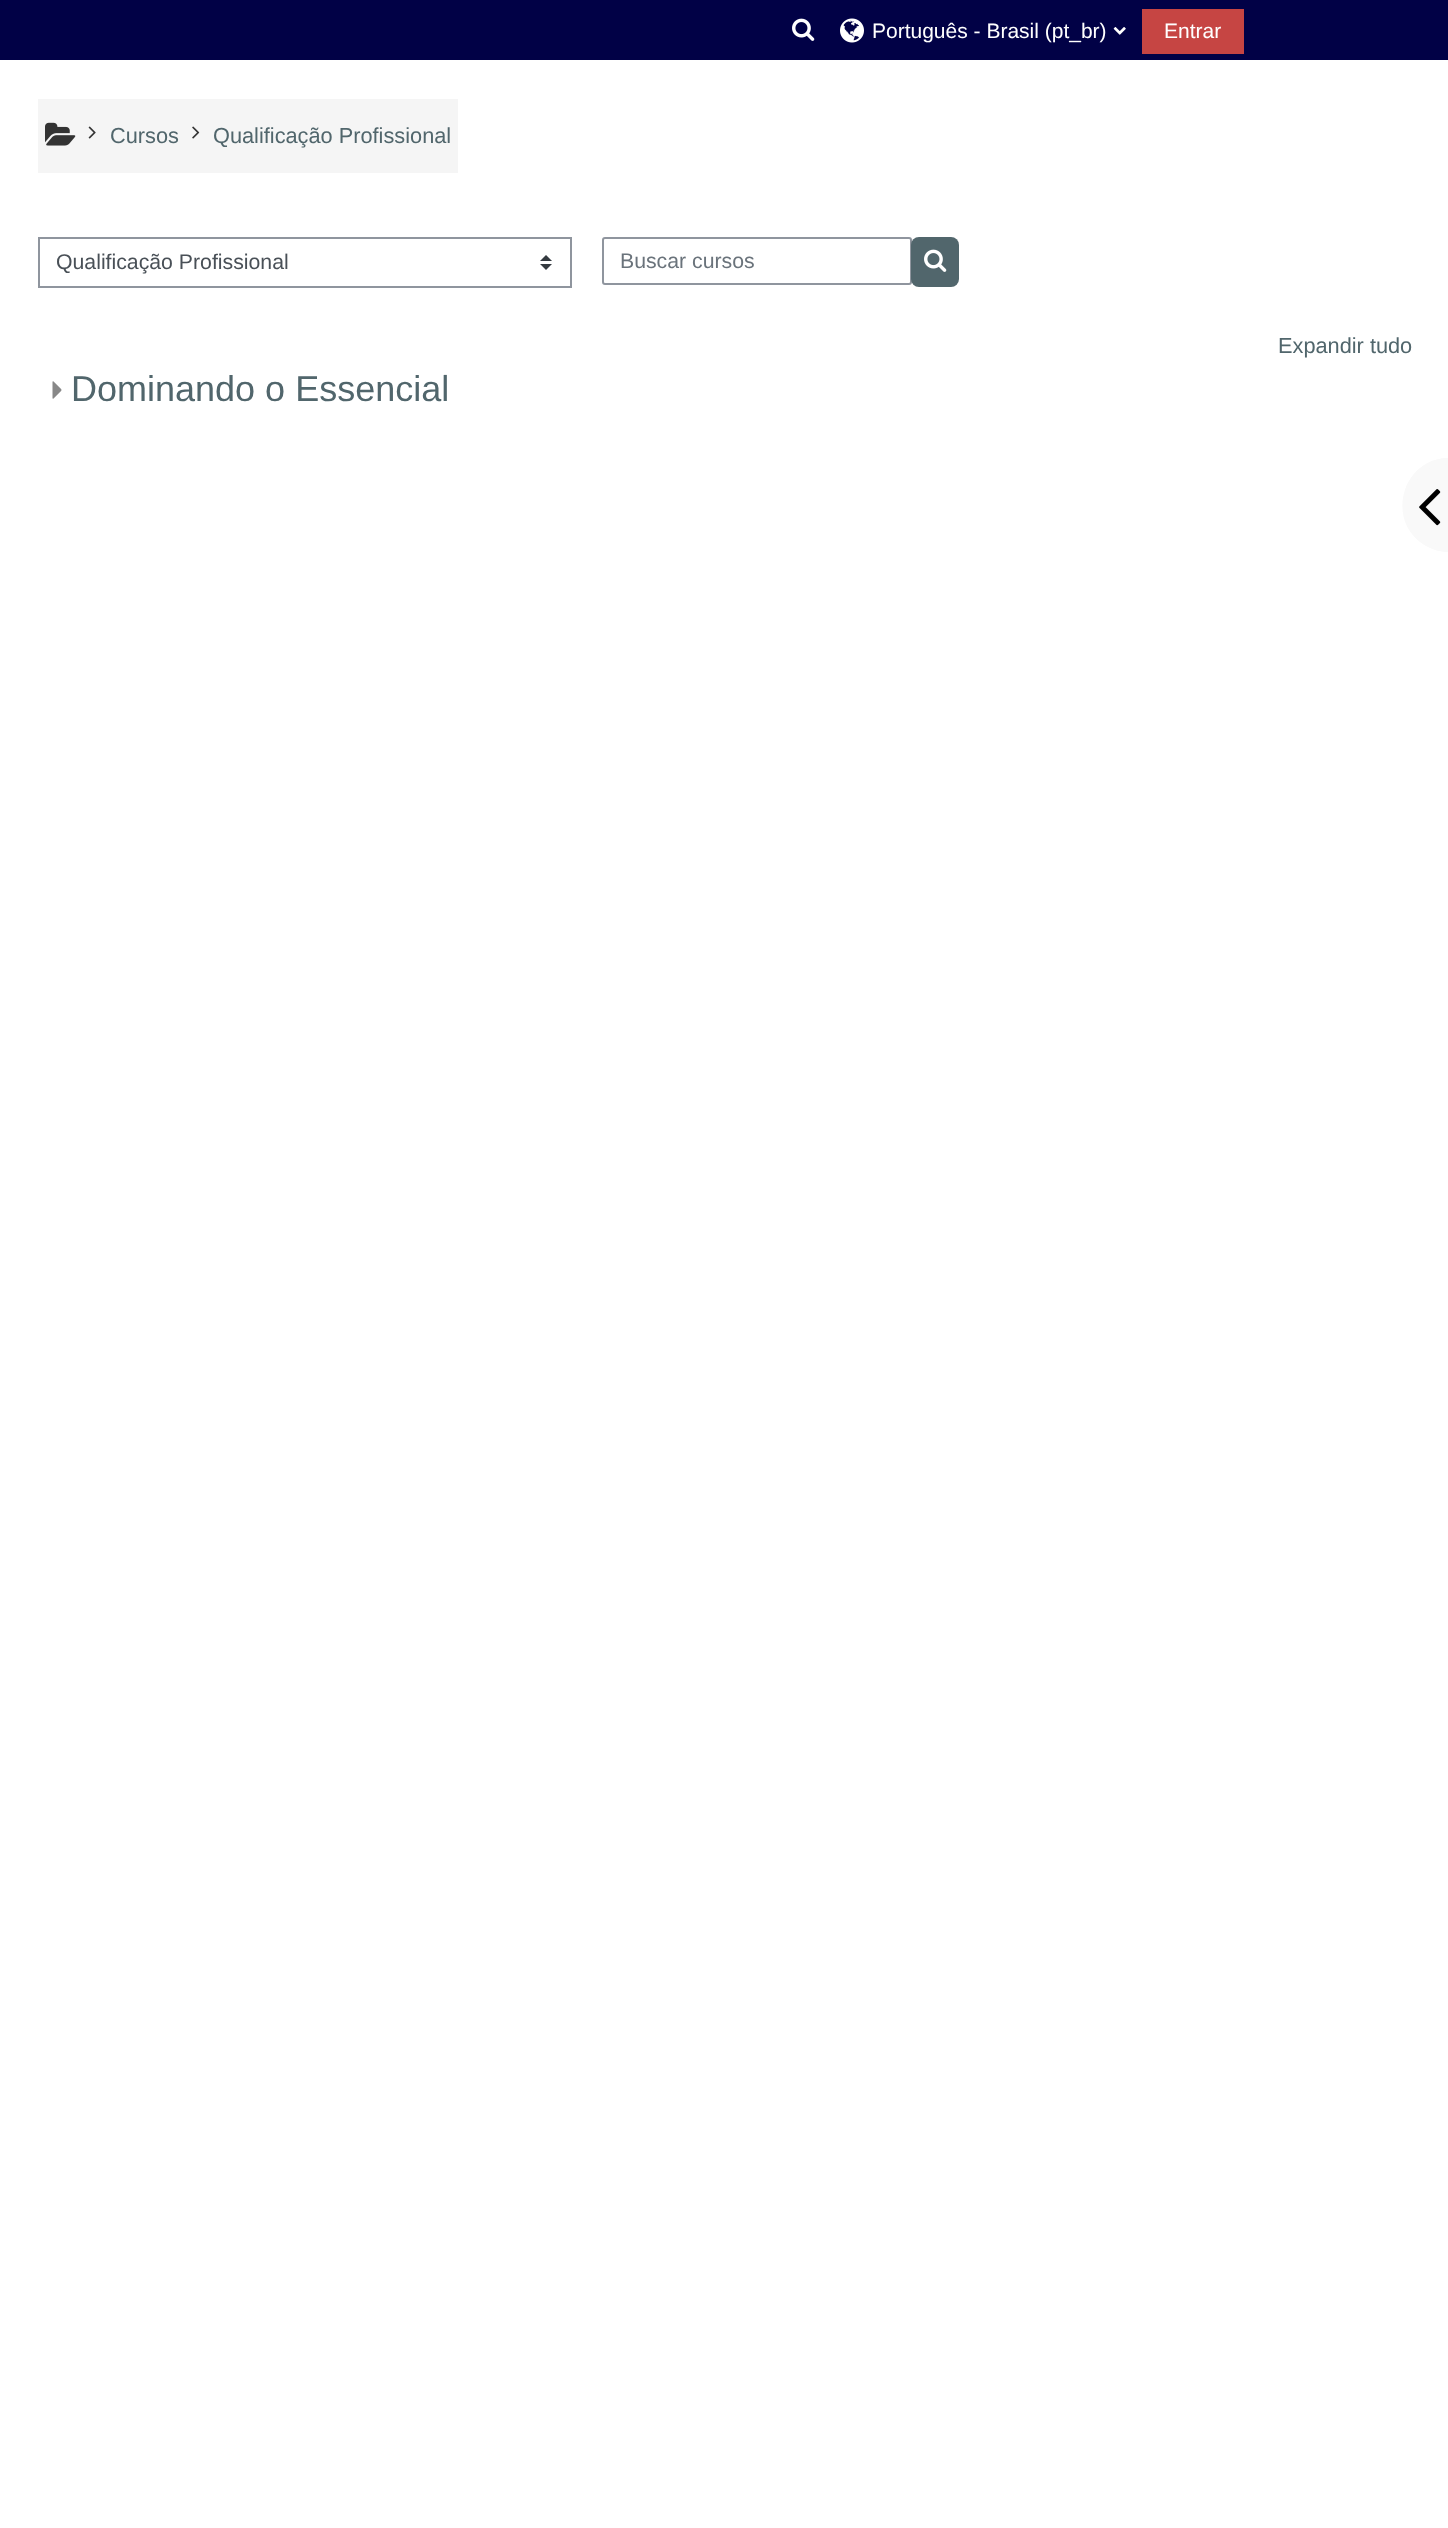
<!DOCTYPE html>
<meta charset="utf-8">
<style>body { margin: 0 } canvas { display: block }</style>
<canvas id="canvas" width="1448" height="2528"></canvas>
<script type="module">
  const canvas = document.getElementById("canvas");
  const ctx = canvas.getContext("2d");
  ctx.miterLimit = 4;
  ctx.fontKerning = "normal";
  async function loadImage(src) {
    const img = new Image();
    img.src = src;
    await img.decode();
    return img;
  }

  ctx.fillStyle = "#ffffff";
  ctx.fillRect(0, 0, 1448, 2528);
  ctx.fillStyle = "#010146";
  ctx.fillRect(0, 0, 1448, 60);
  ctx.drawImage(await loadImage("img1.png"), 792, 18, 23, 23);
  ctx.drawImage(await loadImage("img2.png"), 840, 18, 24, 25);
  ctx.font = "21px Liberation Sans";
  ctx.fillStyle = "#ffffff";
  ctx.fillText("Português - Brasil (pt_br)", 872, 38);
  ctx.drawImage(await loadImage("img3.png"), 1113, 27, 13, 8);
  ctx.fillStyle = "#c64543";
  ctx.fillRect(1142, 9, 102, 45);
  ctx.fillStyle = "#ffffff";
  ctx.fillText("Entrar", 1164, 38);
  ctx.fillStyle = "#f5f5f5";
  ctx.fillRect(38, 99, 420, 74);
  ctx.drawImage(await loadImage("img4.png"), 45, 122, 31, 24);
  ctx.drawImage(await loadImage("img5.png"), 88, 126, 8, 13);
  ctx.font = "21.75px Liberation Sans";
  ctx.fillStyle = "#51666c";
  ctx.fillText("Cursos", 110, 143);
  ctx.drawImage(await loadImage("img6.png"), 192, 126, 8, 13);
  ctx.fillText("Qualificação Profissional", 213, 143);
  ctx.drawImage(await loadImage("img7.png"), 540, 255, 12, 15);
  ctx.strokeStyle = "#8f959e";
  ctx.lineWidth = 2;
  ctx.strokeRect(39, 238, 532, 49);
  ctx.font = "21.25px Liberation Sans";
  ctx.fillStyle = "#495057";
  ctx.fillText("Qualificação Profissional", 56, 269);
  ctx.beginPath();
  ctx.roundRect(603, 238, 308, 46, 2);
  ctx.stroke();
  ctx.fillStyle = "#6a737b";
  ctx.fillText("Buscar cursos", 620, 268);
  ctx.fillStyle = "#51666c";
  ctx.beginPath();
  ctx.roundRect(911, 237, 48, 50, 8);
  ctx.fill();
  ctx.drawImage(await loadImage("img8.png"), 924, 249, 23, 23);
  ctx.font = "21.75px Liberation Sans";
  ctx.fillText("Expandir tudo", 1278, 353);
  ctx.drawImage(await loadImage("img9.png"), 52, 381, 10, 18);
  ctx.font = "36px Liberation Sans";
  ctx.fillText("Dominando o Essencial", 71, 401);
  ctx.fillStyle = "#f9f9f9";
  ctx.beginPath();
  ctx.moveTo(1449, 458);
  ctx.lineTo(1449, 552);
  ctx.bezierCurveTo(1423.5, 552, 1403, 531.5, 1403, 506);
  ctx.lineTo(1403, 504);
  ctx.bezierCurveTo(1403, 478.5, 1423.5, 458, 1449, 458);
  ctx.closePath();
  ctx.fill();
  ctx.beginPath();
  ctx.moveTo(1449, 458);
  ctx.lineTo(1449, 552);
  ctx.bezierCurveTo(1440, 552, 1431, 549, 1423, 544);
  ctx.bezierCurveTo(1385, 519, 1403, 458, 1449, 458);
  ctx.closePath();
  ctx.moveTo(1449, 464);
  ctx.lineTo(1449, 546);
  ctx.bezierCurveTo(1441, 546, 1433, 544, 1426, 539);
  ctx.bezierCurveTo(1394, 517, 1409, 464, 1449, 464);
  ctx.closePath();
  ctx.fill("evenodd");
  ctx.drawImage(await loadImage("img10.png"), 1419, 489, 22, 37);
</script>
